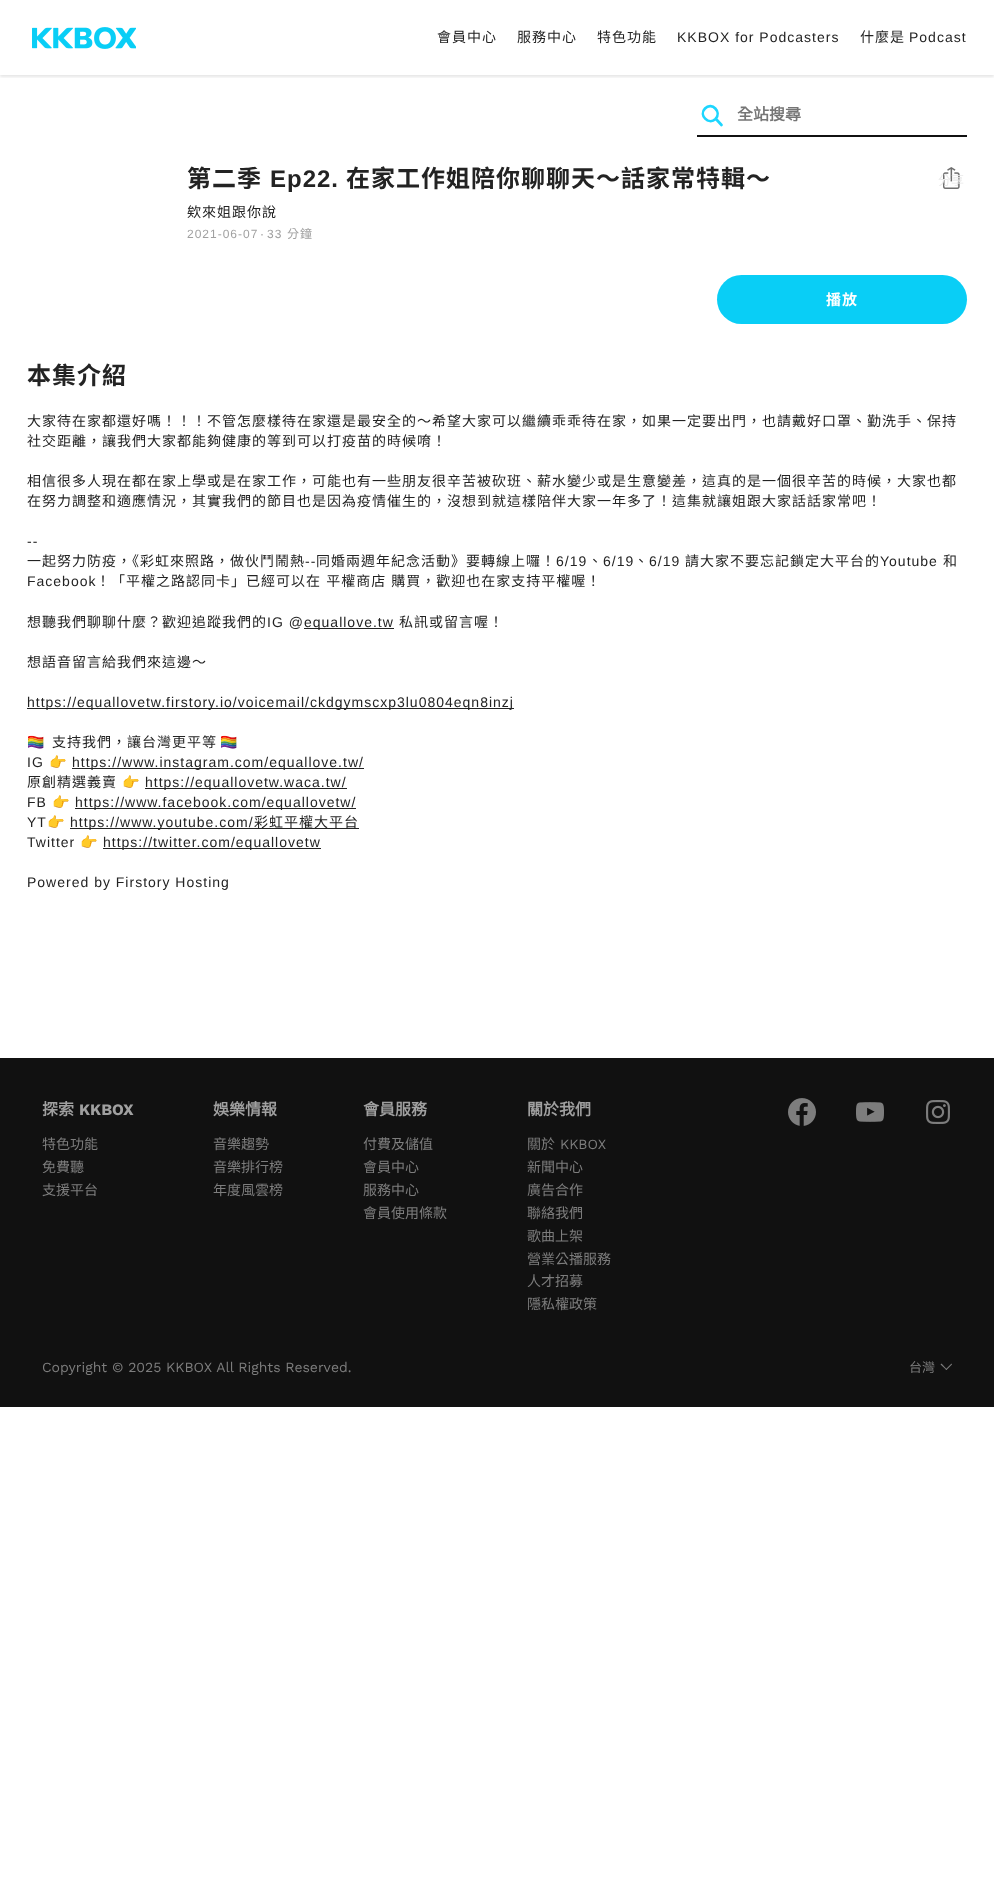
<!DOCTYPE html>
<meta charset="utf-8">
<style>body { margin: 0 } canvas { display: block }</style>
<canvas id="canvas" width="994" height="1890"></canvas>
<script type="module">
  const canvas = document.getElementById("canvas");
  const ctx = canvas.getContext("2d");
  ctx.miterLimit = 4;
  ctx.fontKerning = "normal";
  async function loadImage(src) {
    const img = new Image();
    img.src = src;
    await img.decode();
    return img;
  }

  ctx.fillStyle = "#ffffff";
  ctx.fillRect(0, 0, 994, 1890);
  ctx.save();
  ctx.beginPath();
  ctx.rect(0, 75, 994, 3);
  ctx.clip();
  ctx.fillStyle = "rgba(0, 0, 0, 0.1)";
  ctx.filter = "blur(1.5px)";
  ctx.beginPath();
  ctx.rect(0, 2, 994, 75);
  ctx.fill();
  ctx.filter = "none";
  ctx.restore();
  ctx.drawImage(await loadImage("img1.png"), 32, 27, 104, 22);
  ctx.letterSpacing = "1px";
  ctx.font = "14px Noto Sans CJK TC";
  ctx.fillStyle = "#232323";
  ctx.fillText("會員中心", 437, 42);
  ctx.fillText("服務中心", 517, 42);
  ctx.fillText("特色功能", 597, 42);
  ctx.font = "14px Liberation Sans";
  ctx.fillText("KKBOX for Podcasters", 677, 42);
  ctx.font = "14px Noto Sans CJK TC";
  ctx.fillText("什麼是", 860, 42);
  ctx.font = "14px Liberation Sans";
  ctx.fillText("Podcast", 909, 42);
  ctx.fillStyle = "#111111";
  ctx.fillRect(697, 135, 270, 2);
  ctx.beginPath();
  ctx.moveTo(705, 108.5);
  ctx.bezierCurveTo(712, 101.5, 722, 112, 715.5, 119);
  ctx.bezierCurveTo(708.5, 125.5, 698.5, 115, 705, 108.5);
  ctx.closePath();
  ctx.moveTo(716, 119);
  ctx.lineTo(721.5, 125);
  ctx.strokeStyle = "#1dd6ff";
  ctx.lineWidth = 2.7;
  ctx.lineCap = "round";
  ctx.lineJoin = "round";
  ctx.stroke();
  ctx.letterSpacing = "0px";
  ctx.font = "bold 16px 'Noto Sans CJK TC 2'";
  ctx.fillStyle = "#757575";
  ctx.fillText("全站搜尋", 737, 120);
  ctx.letterSpacing = "1px";
  ctx.font = "bold 24px Noto Sans CJK TC";
  ctx.fillStyle = "#232323";
  ctx.fillText("第二季", 187, 187);
  ctx.font = "bold 24px Liberation Sans";
  ctx.fillText("Ep22.", 270, 187);
  ctx.font = "bold 24px Noto Sans CJK TC";
  ctx.fillText("在家工作姐陪你聊聊天～話家常特輯～", 346, 187);
  ctx.font = "14px Noto Sans CJK TC";
  ctx.fillText("欸來姐跟你說", 187, 217);
  ctx.font = "12px Liberation Sans";
  ctx.fillStyle = "#a0a0a0";
  ctx.fillText("2021-06-07", 187, 238);
  ctx.fillText("·", 260, 238);
  ctx.fillText("33", 267, 238);
  ctx.font = "12px Noto Sans CJK TC";
  ctx.fillText("分鐘", 287, 238);
  ctx.drawImage(await loadImage("img2.png"), 943, 167, 17, 22);
  ctx.letterSpacing = "0px";
  ctx.font = "13px Noto Sans CJK TC";
  ctx.fillStyle = "#eaeaea";
  ctx.fillText("分享", 938, 185);
  ctx.fillStyle = "#09cef6";
  ctx.beginPath();
  ctx.roundRect(717, 275, 250, 49, 24.5);
  ctx.fill();
  ctx.letterSpacing = "1px";
  ctx.font = "bold 15px Noto Sans CJK TC";
  ctx.fillStyle = "#ffffff";
  ctx.fillText("播放", 826, 305);
  ctx.font = "bold 24px Noto Sans CJK TC";
  ctx.fillStyle = "#232323";
  ctx.fillText("本集介紹", 27, 384);
  ctx.font = "14px Noto Sans CJK TC";
  ctx.fillText("大家待在家都還好嗎！！！不管怎麼樣待在家還是最安全的～希望大家可以繼續乖乖待在家，如果一定要出門，也請戴好口罩、勤洗手、保持", 27, 426);
  ctx.fillText("社交距離，讓我們大家都能夠健康的等到可以打疫苗的時候唷！", 27, 446);
  ctx.fillText("相信很多人現在都在家上學或是在家工作，可能也有一些朋友很辛苦被砍班、薪水變少或是生意變差，這真的是一個很辛苦的時候，大家也都", 27, 486);
  ctx.fillText("在努力調整和適應情況，其實我們的節目也是因為疫情催生的，沒想到就這樣陪伴大家一年多了！這集就讓姐跟大家話話家常吧！", 27, 506);
  ctx.font = "14px Liberation Sans";
  ctx.fillText("--", 27, 546);
  ctx.font = "14px Noto Sans CJK TC";
  ctx.fillText("一起努力防疫，《彩虹來照路，做伙鬥鬧熱", 27, 566);
  ctx.font = "14px Liberation Sans";
  ctx.fillText("--", 305, 566);
  ctx.font = "14px Noto Sans CJK TC";
  ctx.fillText("同婚兩週年紀念活動》要轉線上囉！", 316, 566);
  ctx.font = "14px Liberation Sans";
  ctx.fillText("6/19", 556, 566);
  ctx.font = "14px Noto Sans CJK TC";
  ctx.fillText("、", 588, 566);
  ctx.font = "14px Liberation Sans";
  ctx.fillText("6/19", 603, 566);
  ctx.font = "14px Noto Sans CJK TC";
  ctx.fillText("、", 634, 566);
  ctx.font = "14px Liberation Sans";
  ctx.fillText("6/19", 649, 566);
  ctx.font = "14px Noto Sans CJK TC";
  ctx.fillText("請大家不要忘記鎖定大平台的", 685, 566);
  ctx.font = "14px Liberation Sans";
  ctx.fillText("Youtube", 880, 566);
  ctx.font = "14px Noto Sans CJK TC";
  ctx.fillText("和", 943, 566);
  ctx.font = "14px Liberation Sans";
  ctx.fillText("Facebook", 27, 586);
  ctx.wordSpacing = "1px";
  ctx.font = "14px Noto Sans CJK TC";
  ctx.fillText("！「平權之路認同卡」已經可以在 平權商店 購買，歡迎也在家支持平權喔！", 96, 586);
  ctx.wordSpacing = "0px";
  ctx.fillText("想聽我們聊聊什麼？歡迎追蹤我們的", 27, 627);
  ctx.font = "14px Liberation Sans";
  ctx.fillText("IG @", 267, 627);
  ctx.fillRect(304, 628, 90, 1);
  ctx.fillText("equallove.tw", 304, 627);
  ctx.font = "14px Noto Sans CJK TC";
  ctx.fillText("私訊或留言喔！", 399, 627);
  ctx.fillText("想語音留言給我們來這邊～", 27, 667);
  ctx.fillRect(27, 708, 487, 1);
  ctx.font = "14px Liberation Sans";
  ctx.fillText("https://equallovetw.firstory.io/voicemail/ckdgymscxp3lu0804eqn8inzj", 27, 707);
  ctx.font = "14px Noto Color Emoji";
  ctx.fillText("🏳️‍🌈", 27, 747);
  ctx.font = "14px Noto Sans CJK TC";
  ctx.fillText("支持我們，讓台灣更平等", 52, 747);
  ctx.font = "14px Noto Color Emoji";
  ctx.fillText("🏳️‍🌈", 220, 747);
  ctx.font = "14px Liberation Sans";
  ctx.fillText("IG", 27, 767);
  ctx.font = "14px Noto Color Emoji";
  ctx.fillText("👉", 49, 767);
  ctx.fillRect(72, 768, 292, 1);
  ctx.font = "14px Liberation Sans";
  ctx.fillText("https://www.instagram.com/equallove.tw/", 72, 767);
  ctx.font = "14px Noto Sans CJK TC";
  ctx.fillText("原創精選義賣", 27, 787);
  ctx.font = "14px Noto Color Emoji";
  ctx.fillText("👉", 122, 787);
  ctx.fillRect(145, 788, 202, 1);
  ctx.font = "14px Liberation Sans";
  ctx.fillText("https://equallovetw.waca.tw/", 145, 787);
  ctx.fillText("FB", 27, 807);
  ctx.font = "14px Noto Color Emoji";
  ctx.fillText("👉", 52, 807);
  ctx.fillRect(75, 808, 281, 1);
  ctx.font = "14px Liberation Sans";
  ctx.fillText("https://www.facebook.com/equallovetw/", 75, 807);
  ctx.fillText("YT", 27, 827);
  ctx.font = "14px Noto Color Emoji";
  ctx.fillText("👉", 47, 827);
  ctx.fillRect(70, 828, 289, 1);
  ctx.font = "14px Liberation Sans";
  ctx.fillText("https://www.youtube.com/", 70, 827);
  ctx.font = "14px Noto Sans CJK TC";
  ctx.fillText("彩虹平權大平台", 254, 827);
  ctx.font = "14px Liberation Sans";
  ctx.fillText("Twitter", 27, 847);
  ctx.font = "14px Noto Color Emoji";
  ctx.fillText("👉", 80, 847);
  ctx.fillRect(103, 848, 218, 1);
  ctx.font = "14px Liberation Sans";
  ctx.fillText("https://twitter.com/equallovetw", 103, 847);
  ctx.fillText("Powered by Firstory Hosting", 27, 887);
  ctx.fillStyle = "#111111";
  ctx.fillRect(0, 1058, 994, 349);
  ctx.letterSpacing = "0px";
  ctx.font = "bold 16px 'Noto Sans CJK TC 2'";
  ctx.fillStyle = "#a0a0a0";
  ctx.fillText("探索", 42, 1115);
  ctx.font = "bold 16px Work Sans";
  ctx.fillText("KKBOX", 79, 1115);
  ctx.font = "14px Noto Sans CJK TC";
  ctx.fillStyle = "#7d7d7d";
  ctx.fillText("特色功能", 42, 1149);
  ctx.fillText("免費聽", 42, 1172);
  ctx.fillText("支援平台", 42, 1195);
  ctx.font = "bold 16px 'Noto Sans CJK TC 2'";
  ctx.fillStyle = "#a0a0a0";
  ctx.fillText("娛樂情報", 213, 1115);
  ctx.font = "14px Noto Sans CJK TC";
  ctx.fillStyle = "#7d7d7d";
  ctx.fillText("音樂趨勢", 213, 1149);
  ctx.fillText("音樂排行榜", 213, 1172);
  ctx.fillText("年度風雲榜", 213, 1195);
  ctx.font = "bold 16px 'Noto Sans CJK TC 2'";
  ctx.fillStyle = "#a0a0a0";
  ctx.fillText("會員服務", 363, 1115);
  ctx.font = "14px Noto Sans CJK TC";
  ctx.fillStyle = "#7d7d7d";
  ctx.fillText("付費及儲值", 363, 1149);
  ctx.fillText("會員中心", 363, 1172);
  ctx.fillText("服務中心", 363, 1195);
  ctx.fillText("會員使用條款", 363, 1218);
  ctx.font = "bold 16px 'Noto Sans CJK TC 2'";
  ctx.fillStyle = "#a0a0a0";
  ctx.fillText("關於我們", 527, 1115);
  ctx.font = "14px Noto Sans CJK TC";
  ctx.fillStyle = "#7d7d7d";
  ctx.fillText("關於", 527, 1149);
  ctx.font = "14px Work Sans";
  ctx.fillText("KKBOX", 560, 1149);
  ctx.font = "14px Noto Sans CJK TC";
  ctx.fillText("新聞中心", 527, 1172);
  ctx.fillText("廣告合作", 527, 1195);
  ctx.fillText("聯絡我們", 527, 1218);
  ctx.fillText("歌曲上架", 527, 1241);
  ctx.fillText("營業公播服務", 527, 1264);
  ctx.fillText("人才招募", 527, 1286);
  ctx.fillText("隱私權政策", 527, 1309);
  ctx.drawImage(await loadImage("img3.png"), 788, 1098, 28, 28);
  ctx.drawImage(await loadImage("img4.png"), 856, 1102, 28, 20);
  ctx.drawImage(await loadImage("img5.png"), 926, 1100, 24, 24);
  ctx.font = "14px Work Sans";
  ctx.fillText("Copyright © 2025 KKBOX All Rights Reserved.", 42, 1372);
  ctx.font = "13px Noto Sans CJK TC";
  ctx.fillText("台灣", 909, 1372);
  ctx.beginPath();
  ctx.moveTo(951.5, 1363.5);
  ctx.lineTo(952, 1364.5);
  ctx.lineTo(946.5, 1370);
  ctx.lineTo(945.5, 1369.5);
  ctx.closePath();
  ctx.fill();
  ctx.beginPath();
  ctx.moveTo(941.5, 1363.5);
  ctx.lineTo(947, 1369.5);
  ctx.lineTo(946.5, 1370);
  ctx.lineTo(940.5, 1364.5);
  ctx.closePath();
  ctx.fill();
</script>
